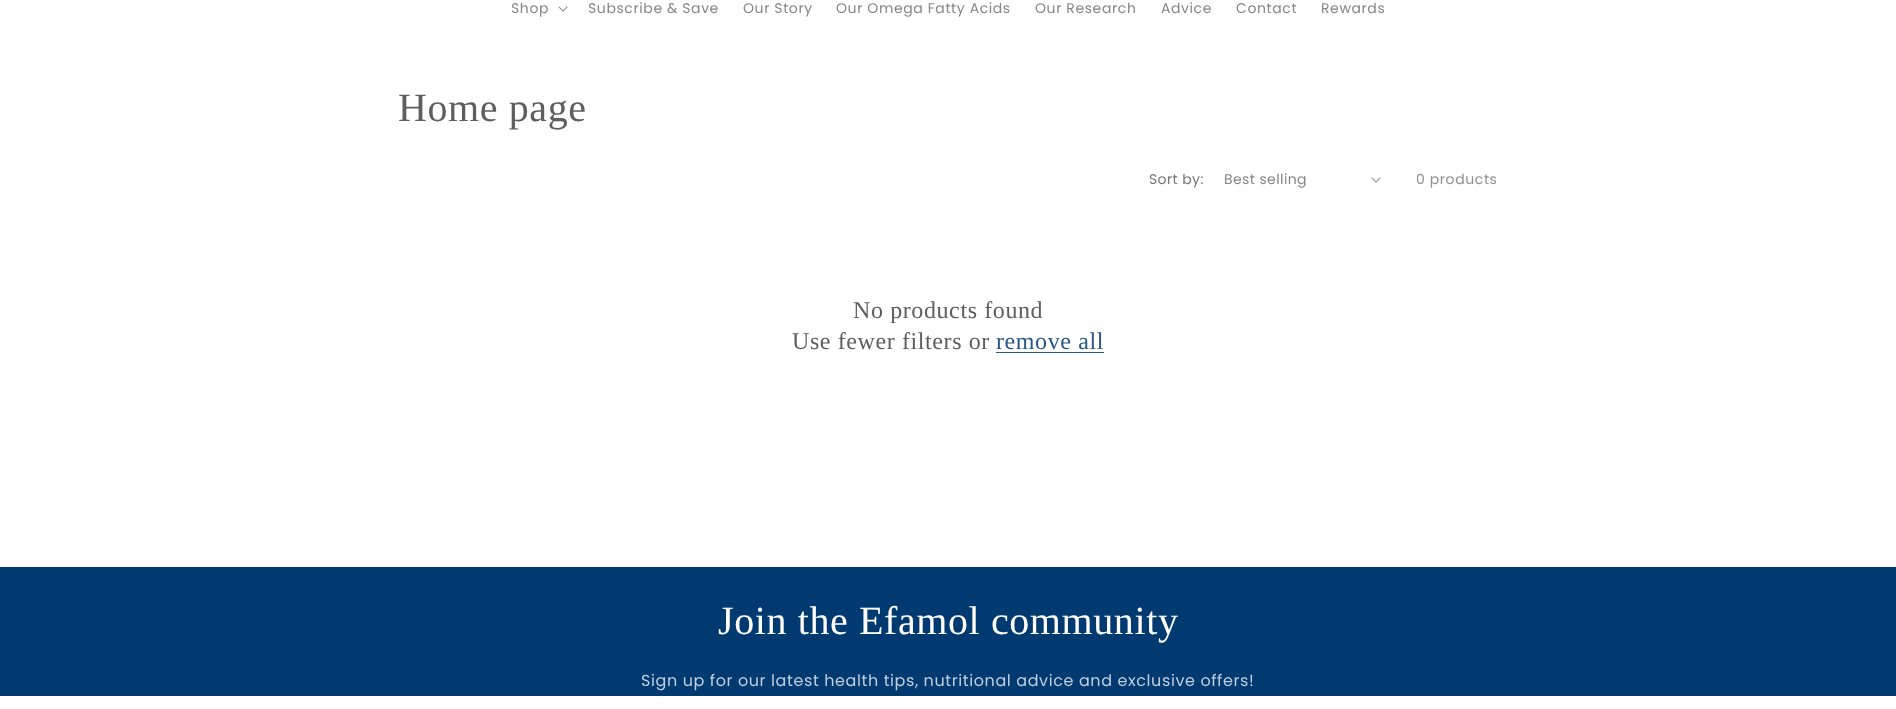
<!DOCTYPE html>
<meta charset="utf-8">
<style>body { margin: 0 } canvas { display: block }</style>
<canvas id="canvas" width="1896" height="709"></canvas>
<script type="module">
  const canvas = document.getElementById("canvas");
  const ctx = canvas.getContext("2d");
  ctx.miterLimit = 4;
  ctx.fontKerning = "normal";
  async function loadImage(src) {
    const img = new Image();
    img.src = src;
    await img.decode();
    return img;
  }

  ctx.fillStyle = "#ffffff";
  ctx.fillRect(0, 0, 1896, 709);
  ctx.letterSpacing = "0.6px";
  ctx.font = "14px Poppins";
  ctx.fillStyle = "#868686";
  ctx.fillText("Shop", 511, 13);
  ctx.drawImage(await loadImage("img1.png"), 558, 6, 10, 6);
  ctx.fillText("Subscribe & Save", 588, 13);
  ctx.fillText("Our Story", 743, 13);
  ctx.fillText("Our Omega Fatty Acids", 836, 13);
  ctx.fillText("Our Research", 1035, 13);
  ctx.fillText("Advice", 1161, 13);
  ctx.fillText("Contact", 1236, 13);
  ctx.fillText("Rewards", 1321, 13);
  ctx.font = "40px Liberation Serif";
  ctx.fillStyle = "#5e5e5e";
  ctx.fillText("Home page", 398, 121);
  ctx.letterSpacing = "0.4px";
  ctx.font = "14px Poppins";
  ctx.fillStyle = "#767676";
  ctx.fillText("Sort by:", 1149, 184);
  ctx.fillStyle = "#868686";
  ctx.fillText("Best selling", 1224, 184);
  ctx.drawImage(await loadImage("img1.png"), 1371, 177, 10, 6);
  ctx.letterSpacing = "0.6px";
  ctx.fillStyle = "#8e8e8e";
  ctx.fillText("0 products", 1416, 184);
  ctx.font = "24px Liberation Serif";
  ctx.fillStyle = "#5e5e5e";
  ctx.fillText("No products found", 853, 318);
  ctx.fillText("Use fewer filters or", 792, 349);
  ctx.fillStyle = "#265885";
  ctx.fillText("remove all", 996, 349);
  ctx.fillRect(996, 352, 108, 1);
  ctx.fillStyle = "#003a70";
  ctx.fillRect(0, 567, 1896, 129);
  ctx.font = "40px Liberation Serif";
  ctx.fillStyle = "#ffffff";
  ctx.fillText("Join the Efamol community", 718, 634);
  ctx.font = "16px Poppins";
  ctx.fillStyle = "#bfcedb";
  ctx.fillText("Sign up for our latest health tips, nutritional advice and exclusive offers!", 641, 686);
</script>
